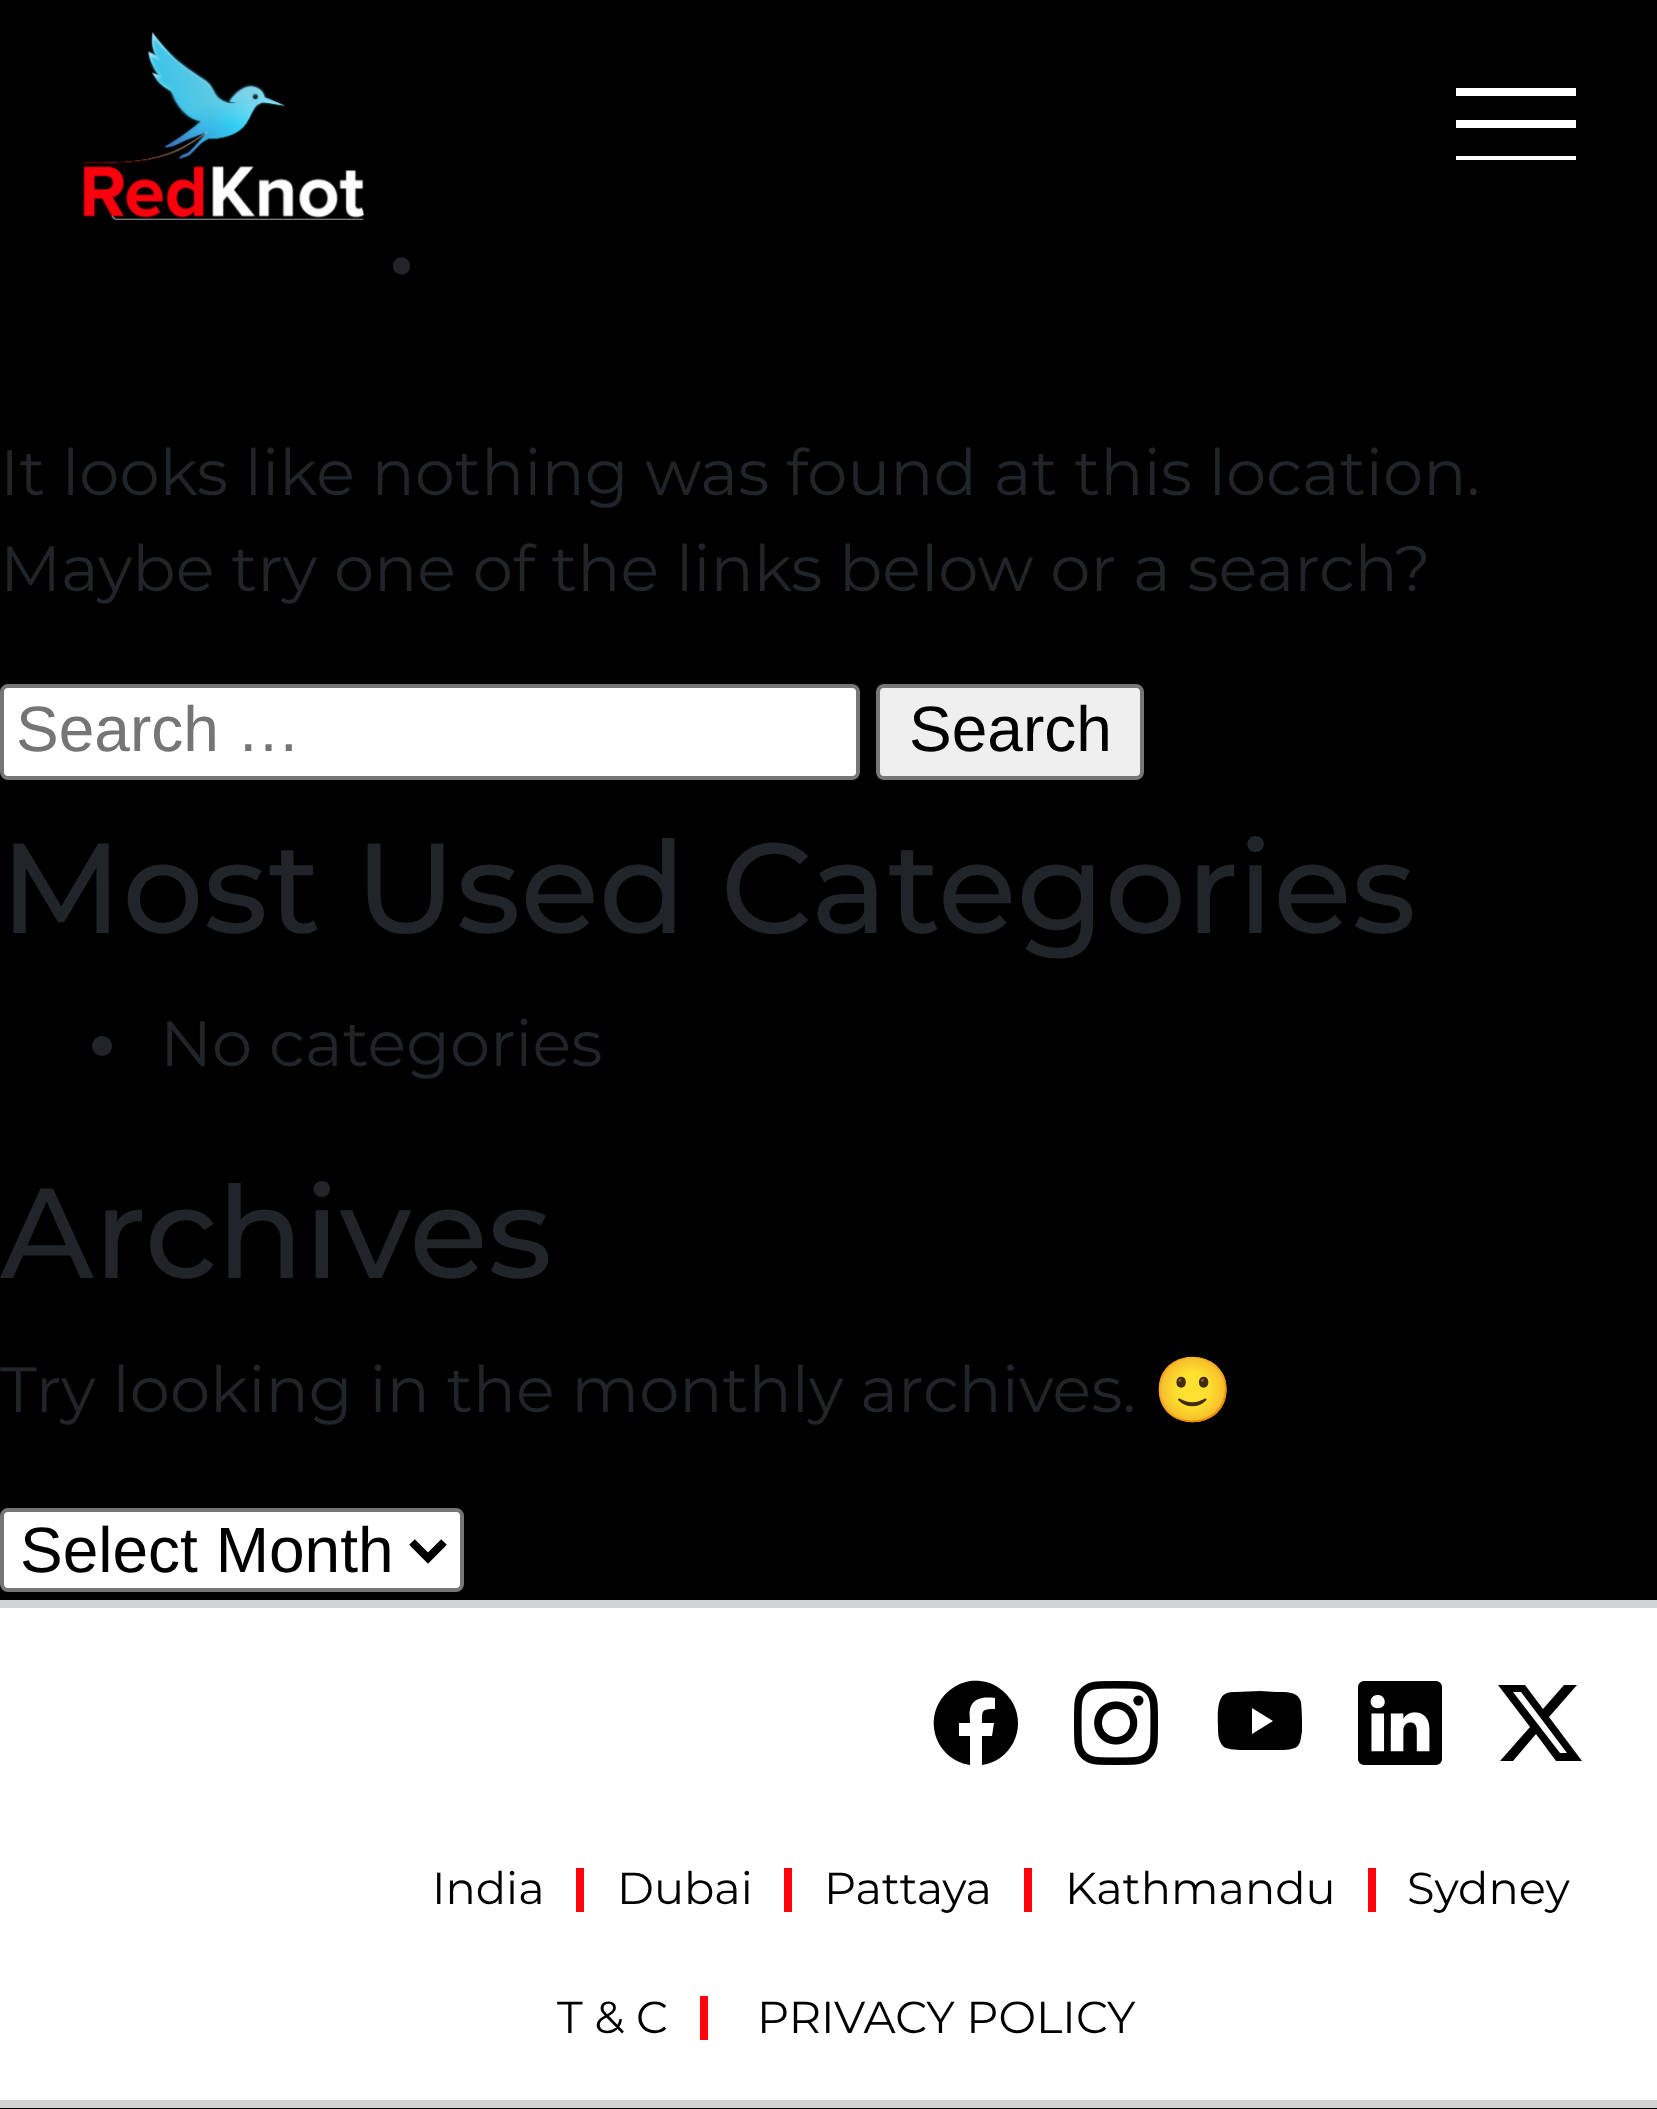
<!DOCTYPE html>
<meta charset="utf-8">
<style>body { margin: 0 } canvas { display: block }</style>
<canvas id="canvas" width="1657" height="2109"></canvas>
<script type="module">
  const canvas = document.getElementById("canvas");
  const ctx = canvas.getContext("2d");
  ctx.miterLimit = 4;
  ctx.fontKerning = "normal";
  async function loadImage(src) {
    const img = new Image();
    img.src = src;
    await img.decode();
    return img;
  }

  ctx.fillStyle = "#000000";
  ctx.fillRect(0, 0, 1657, 2109);
  ctx.drawImage(await loadImage("img1.png"), 83, 32, 281, 188);
  ctx.fillStyle = "#ffffff";
  ctx.fillRect(1456, 88, 120, 8);
  ctx.fillRect(1456, 120, 120, 8);
  ctx.fillRect(1456, 156, 120, 4);
  ctx.font = "500 128px Montserrat";
  ctx.fillStyle = "#212529";
  ctx.fillText(".", 387, 274);
  ctx.font = "64px Montserrat";
  ctx.fillText("It looks like nothing was found at this location.", 0, 495);
  ctx.fillText("Maybe try one of the links below or a search?", 0, 591);
  ctx.fillStyle = "#ffffff";
  ctx.beginPath();
  ctx.roundRect(2, 686, 856, 92, 6);
  ctx.fill();
  ctx.strokeStyle = "#767676";
  ctx.lineWidth = 4;
  ctx.stroke();
  ctx.font = "64px Liberation Sans";
  ctx.fillStyle = "#757575";
  ctx.fillText("Search …", 16, 751);
  ctx.fillStyle = "#efefef";
  ctx.beginPath();
  ctx.roundRect(878, 686, 264, 92, 6);
  ctx.fill();
  ctx.stroke();
  ctx.fillStyle = "#000000";
  ctx.fillText("Search", 909, 751);
  ctx.font = "500 128px Montserrat";
  ctx.fillStyle = "#212529";
  ctx.fillText("Most Used Categories", 0, 933);
  ctx.beginPath();
  ctx.arc(102, 1046, 10, 0, Math.PI * 2);
  ctx.fill();
  ctx.font = "64px Montserrat";
  ctx.fillText("No categories", 160, 1066);
  ctx.font = "500 128px Montserrat";
  ctx.fillText("Archives", 0, 1278);
  ctx.font = "64px Montserrat";
  ctx.fillText("Try looking in the monthly archives.", 0, 1412);
  ctx.font = "64px Noto Color Emoji";
  ctx.fillText("🙂", 1153, 1412);
  ctx.fillStyle = "#ffffff";
  ctx.beginPath();
  ctx.roundRect(2, 1510, 460, 80, 6);
  ctx.fill();
  ctx.stroke();
  ctx.beginPath();
  ctx.moveTo(412, 1542);
  ctx.lineTo(428, 1558);
  ctx.lineTo(444, 1542);
  ctx.strokeStyle = "#000000";
  ctx.lineWidth = 8;
  ctx.stroke();
  ctx.font = "64px Liberation Sans";
  ctx.fillStyle = "#000000";
  ctx.fillText("Select Month", 20, 1572);
  ctx.fillStyle = "#ffffff";
  ctx.fillRect(0, 1608, 1657, 492);
  ctx.fillStyle = "#d1d3d4";
  ctx.fillRect(0, 1600, 1657, 8);
  ctx.fillRect(0, 2100, 1657, 8);
  ctx.fillStyle = "#000000";
  ctx.beginPath();
  ctx.moveTo(1018, 1723);
  ctx.bezierCurveTo(1018, 1709, 1011, 1696, 999, 1688);
  ctx.bezierCurveTo(991, 1682, 981, 1680, 970, 1681);
  ctx.bezierCurveTo(963, 1682, 956, 1685, 950, 1690);
  ctx.bezierCurveTo(921, 1713, 933, 1759, 970, 1765);
  ctx.lineTo(970, 1736);
  ctx.lineTo(959, 1736);
  ctx.lineTo(959, 1723);
  ctx.lineTo(970, 1723);
  ctx.bezierCurveTo(970, 1718, 969, 1713, 970, 1709);
  ctx.bezierCurveTo(973, 1697, 985, 1697, 995, 1698);
  ctx.lineTo(995, 1709);
  ctx.bezierCurveTo(981, 1709, 982, 1711, 982, 1723);
  ctx.lineTo(994, 1723);
  ctx.lineTo(992, 1736);
  ctx.lineTo(982, 1736);
  ctx.lineTo(982, 1765);
  ctx.bezierCurveTo(1003, 1762, 1018, 1744, 1018, 1723);
  ctx.closePath();
  ctx.fill();
  ctx.drawImage(await loadImage("img2.png"), 1074, 1681, 84, 84);
  ctx.beginPath();
  ctx.moveTo(1260, 1691);
  ctx.lineTo(1276, 1692);
  ctx.bezierCurveTo(1286, 1692, 1298, 1691, 1301, 1702);
  ctx.bezierCurveTo(1302, 1711, 1302, 1721, 1302, 1731);
  ctx.bezierCurveTo(1300, 1745, 1300, 1749, 1284, 1750);
  ctx.lineTo(1258, 1750);
  ctx.bezierCurveTo(1250, 1750, 1230, 1751, 1224, 1747);
  ctx.bezierCurveTo(1218, 1742, 1218, 1733, 1218, 1727);
  ctx.bezierCurveTo(1218, 1719, 1216, 1699, 1225, 1694);
  ctx.bezierCurveTo(1228, 1692, 1233, 1692, 1236, 1692);
  ctx.closePath();
  ctx.moveTo(1252, 1708);
  ctx.lineTo(1252, 1734);
  ctx.lineTo(1273, 1721);
  ctx.closePath();
  ctx.fill();
  ctx.drawImage(await loadImage("img3.png"), 1358, 1681, 84, 84);
  ctx.beginPath();
  ctx.moveTo(1564, 1685);
  ctx.lineTo(1577, 1685);
  ctx.lineTo(1549, 1717);
  ctx.lineTo(1582, 1761);
  ctx.lineTo(1556, 1761);
  ctx.lineTo(1536, 1734);
  ctx.lineTo(1513, 1761);
  ctx.lineTo(1500, 1761);
  ctx.lineTo(1530, 1727);
  ctx.lineTo(1498, 1685);
  ctx.lineTo(1525, 1685);
  ctx.lineTo(1543, 1709);
  ctx.closePath();
  ctx.moveTo(1560, 1753);
  ctx.lineTo(1567, 1753);
  ctx.lineTo(1521, 1692);
  ctx.lineTo(1513, 1692);
  ctx.closePath();
  ctx.fill();
  ctx.fillStyle = "#ff040a";
  ctx.fillRect(576, 1868, 8, 44);
  ctx.font = "44.75px Montserrat";
  ctx.fillStyle = "#000000";
  ctx.fillText("India", 432, 1904);
  ctx.fillStyle = "#ff040a";
  ctx.fillRect(784, 1868, 8, 44);
  ctx.fillStyle = "#000000";
  ctx.fillText("Dubai", 617, 1904);
  ctx.fillStyle = "#ff040a";
  ctx.fillRect(1024, 1868, 8, 44);
  ctx.fillStyle = "#000000";
  ctx.fillText("Pattaya", 824, 1904);
  ctx.fillStyle = "#ff040a";
  ctx.fillRect(1368, 1868, 8, 44);
  ctx.fillStyle = "#000000";
  ctx.fillText("Kathmandu", 1065, 1904);
  ctx.fillText("Sydney", 1407, 1904);
  ctx.fillStyle = "#ff040a";
  ctx.fillRect(700, 1996, 8, 44);
  ctx.fillStyle = "#000000";
  ctx.fillText("T & C", 557, 2033);
  ctx.fillText("PRIVACY POLICY", 757, 2033);
</script>
